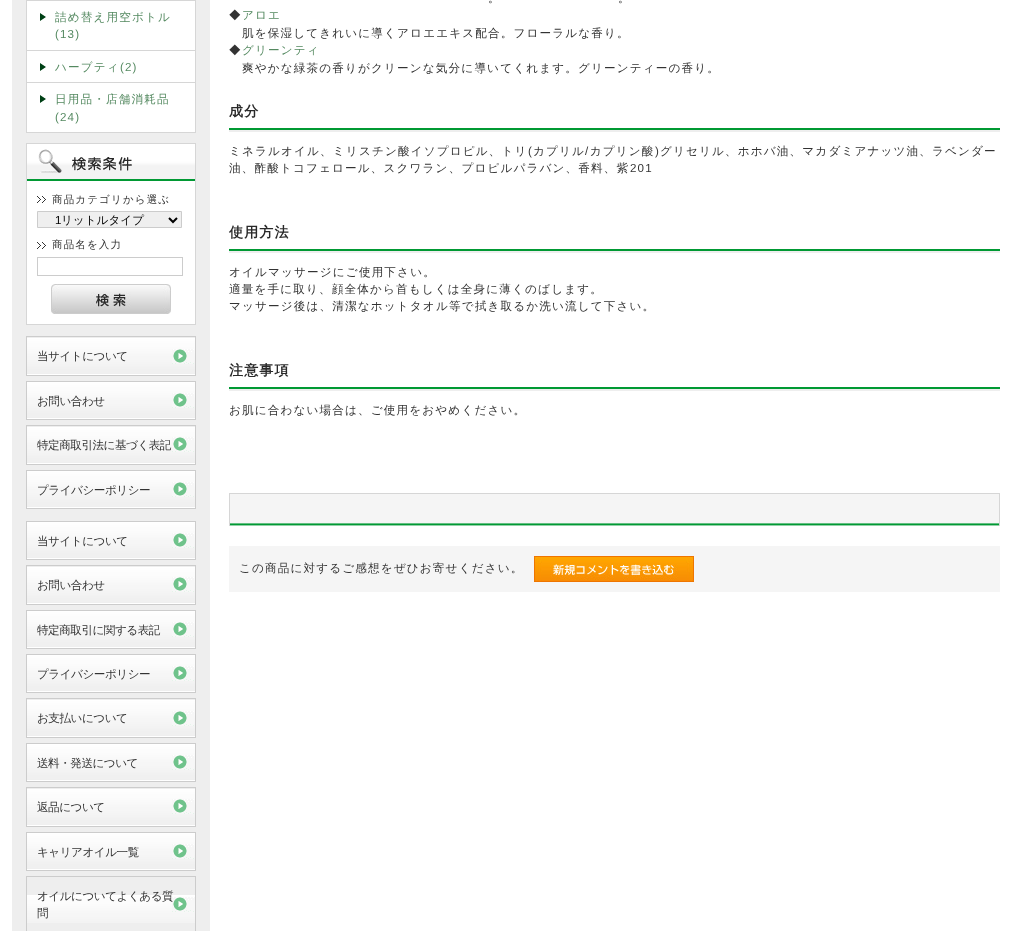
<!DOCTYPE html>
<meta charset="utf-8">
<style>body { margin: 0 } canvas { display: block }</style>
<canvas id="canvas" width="1012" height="931"></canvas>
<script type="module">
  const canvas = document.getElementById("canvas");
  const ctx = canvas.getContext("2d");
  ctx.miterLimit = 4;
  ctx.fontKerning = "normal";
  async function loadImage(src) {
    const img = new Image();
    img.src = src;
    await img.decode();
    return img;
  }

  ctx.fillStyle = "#ffffff";
  ctx.fillRect(0, 0, 1012, 931);
  ctx.fillStyle = "#eeeeee";
  ctx.fillRect(12, 0, 198, 931);
  ctx.fillStyle = "#ffffff";
  ctx.fillRect(27, 1, 168, 131);
  ctx.fillStyle = "#d6d6d6";
  ctx.fillRect(195, 0, 1, 133);
  ctx.fillRect(26, 132, 170, 1);
  ctx.fillRect(26, 0, 1, 133);
  ctx.fillRect(27, 0, 168, 1);
  ctx.fillRect(27, 50, 168, 1);
  ctx.drawImage(await loadImage("img1.png"), 40, 13, 6, 8);
  ctx.letterSpacing = "1.15px";
  ctx.font = "500 11.6px WenQuanYi Zen Hei";
  ctx.fillStyle = "#548960";
  ctx.fillText("詰め替え用空ボトル", 55, 21);
  ctx.font = "11.6px Liberation Sans";
  ctx.fillText("(13)", 55, 38);
  ctx.fillStyle = "#d6d6d6";
  ctx.fillRect(27, 82, 168, 1);
  ctx.drawImage(await loadImage("img1.png"), 40, 63, 6, 8);
  ctx.font = "500 11.6px WenQuanYi Zen Hei";
  ctx.fillStyle = "#548960";
  ctx.fillText("ハーブティ", 55, 71);
  ctx.font = "11.6px Liberation Sans";
  ctx.fillText("(2)", 120, 71);
  ctx.drawImage(await loadImage("img1.png"), 40, 95, 6, 8);
  ctx.font = "500 11.6px WenQuanYi Zen Hei";
  ctx.fillText("日用品・店舗消耗品", 55, 103);
  ctx.font = "11.6px Liberation Sans";
  ctx.fillText("(24)", 55, 121);
  ctx.fillStyle = "#ffffff";
  ctx.fillRect(27, 144, 168, 4);
  ctx.drawImage(await loadImage("img2.png"), 27, 148, 168, 33);
  ctx.fillStyle = "#d6d6d6";
  ctx.fillRect(26, 143, 170, 1);
  ctx.fillRect(195, 143, 1, 182);
  ctx.fillRect(26, 143, 1, 38);
  ctx.drawImage(await loadImage("img3.png"), 38, 149, 94, 24);
  ctx.fillStyle = "#ffffff";
  ctx.fillRect(27, 181, 168, 143);
  ctx.fillStyle = "#d6d6d6";
  ctx.fillRect(26, 324, 170, 1);
  ctx.fillRect(26, 181, 1, 144);
  ctx.drawImage(await loadImage("img4.png"), 37, 196, 9, 7);
  ctx.font = "500 10.5px WenQuanYi Zen Hei";
  ctx.fillStyle = "#333333";
  ctx.fillText("商品カテゴリから選ぶ", 52, 203);
  ctx.fillStyle = "#efefef";
  ctx.beginPath();
  ctx.rect(37.5, 211.5, 144, 16);
  ctx.fill();
  ctx.strokeStyle = "#cccccc";
  ctx.stroke();
  ctx.beginPath();
  ctx.moveTo(169, 218);
  ctx.lineTo(173, 222);
  ctx.lineTo(177, 218);
  ctx.strokeStyle = "#000000";
  ctx.lineWidth = 2;
  ctx.stroke();
  ctx.letterSpacing = "0px";
  ctx.font = "11.6px Liberation Sans";
  ctx.fillStyle = "#000000";
  ctx.fillText("1", 55, 224);
  ctx.font = "500 11.6px WenQuanYi Zen Hei";
  ctx.fillText("リットルタイプ", 61, 224);
  ctx.drawImage(await loadImage("img4.png"), 37, 242, 9, 7);
  ctx.letterSpacing = "1.15px";
  ctx.font = "500 10.5px WenQuanYi Zen Hei";
  ctx.fillStyle = "#333333";
  ctx.fillText("商品名を入力", 52, 248);
  ctx.strokeStyle = "#cccccc";
  ctx.lineWidth = 1;
  ctx.strokeRect(37.5, 257.5, 145, 18);
  ctx.drawImage(await loadImage("img5.png"), 51, 284, 120, 30);
  ctx.drawImage(await loadImage("img6.png"), 26, 338, 170, 38);
  ctx.drawImage(await loadImage("img7.png"), 172, 349, 22, 15);
  ctx.fillStyle = "#cccccc";
  ctx.fillRect(26, 336, 170, 1);
  ctx.fillRect(195, 336, 1, 39);
  ctx.fillRect(26, 336, 1, 39);
  ctx.letterSpacing = "-0.5px";
  ctx.font = "500 11.6px WenQuanYi Zen Hei";
  ctx.fillStyle = "#333333";
  ctx.fillText("当サイトについて", 37, 360);
  ctx.drawImage(await loadImage("img6.png"), 26, 382, 170, 38);
  ctx.drawImage(await loadImage("img7.png"), 172, 393, 22, 15);
  ctx.fillStyle = "#cccccc";
  ctx.fillRect(26, 381, 170, 1);
  ctx.fillRect(195, 381, 1, 38);
  ctx.fillRect(26, 381, 1, 38);
  ctx.fillStyle = "#333333";
  ctx.fillText("お問い合わせ", 37, 405);
  ctx.drawImage(await loadImage("img6.png"), 26, 427, 170, 38);
  ctx.drawImage(await loadImage("img7.png"), 172, 437, 22, 15);
  ctx.fillStyle = "#cccccc";
  ctx.fillRect(26, 425, 170, 1);
  ctx.fillRect(195, 425, 1, 39);
  ctx.fillRect(26, 425, 1, 39);
  ctx.fillStyle = "#333333";
  ctx.fillText("特定商取引法に基づく表記", 37, 449);
  ctx.drawImage(await loadImage("img6.png"), 26, 471, 170, 38);
  ctx.drawImage(await loadImage("img7.png"), 172, 482, 22, 15);
  ctx.fillStyle = "#cccccc";
  ctx.fillRect(26, 470, 170, 1);
  ctx.fillRect(195, 470, 1, 38);
  ctx.fillRect(26, 470, 1, 38);
  ctx.fillStyle = "#333333";
  ctx.fillText("プライバシーポリシー", 37, 494);
  ctx.drawImage(await loadImage("img6.png"), 26, 522, 170, 38);
  ctx.drawImage(await loadImage("img7.png"), 172, 533, 22, 15);
  ctx.fillStyle = "#cccccc";
  ctx.fillRect(26, 521, 170, 1);
  ctx.fillRect(195, 521, 1, 38);
  ctx.fillRect(26, 521, 1, 38);
  ctx.fillStyle = "#333333";
  ctx.fillText("当サイトについて", 37, 545);
  ctx.drawImage(await loadImage("img6.png"), 26, 567, 170, 38);
  ctx.drawImage(await loadImage("img7.png"), 172, 577, 22, 15);
  ctx.fillStyle = "#cccccc";
  ctx.fillRect(26, 565, 170, 1);
  ctx.fillRect(195, 565, 1, 39);
  ctx.fillRect(26, 565, 1, 39);
  ctx.fillStyle = "#333333";
  ctx.fillText("お問い合わせ", 37, 589);
  ctx.drawImage(await loadImage("img6.png"), 26, 611, 170, 38);
  ctx.drawImage(await loadImage("img7.png"), 172, 622, 22, 15);
  ctx.fillStyle = "#cccccc";
  ctx.fillRect(26, 610, 170, 1);
  ctx.fillRect(195, 610, 1, 38);
  ctx.fillRect(26, 610, 1, 38);
  ctx.fillStyle = "#333333";
  ctx.fillText("特定商取引に関する表記", 37, 634);
  ctx.drawImage(await loadImage("img6.png"), 26, 655, 170, 38);
  ctx.drawImage(await loadImage("img7.png"), 172, 666, 22, 15);
  ctx.fillStyle = "#cccccc";
  ctx.fillRect(26, 654, 170, 1);
  ctx.fillRect(195, 654, 1, 38);
  ctx.fillRect(26, 654, 1, 38);
  ctx.fillStyle = "#333333";
  ctx.fillText("プライバシーポリシー", 37, 678);
  ctx.drawImage(await loadImage("img6.png"), 26, 700, 170, 38);
  ctx.drawImage(await loadImage("img7.png"), 172, 711, 22, 15);
  ctx.fillStyle = "#cccccc";
  ctx.fillRect(26, 698, 170, 1);
  ctx.fillRect(195, 698, 1, 39);
  ctx.fillRect(26, 698, 1, 39);
  ctx.fillStyle = "#333333";
  ctx.fillText("お支払いについて", 37, 722);
  ctx.drawImage(await loadImage("img6.png"), 26, 744, 170, 38);
  ctx.drawImage(await loadImage("img7.png"), 172, 755, 22, 15);
  ctx.fillStyle = "#cccccc";
  ctx.fillRect(26, 743, 170, 1);
  ctx.fillRect(195, 743, 1, 38);
  ctx.fillRect(26, 743, 1, 38);
  ctx.fillStyle = "#333333";
  ctx.fillText("送料・発送について", 37, 767);
  ctx.drawImage(await loadImage("img6.png"), 26, 789, 170, 38);
  ctx.drawImage(await loadImage("img7.png"), 172, 799, 22, 15);
  ctx.fillStyle = "#cccccc";
  ctx.fillRect(26, 787, 170, 1);
  ctx.fillRect(195, 787, 1, 39);
  ctx.fillRect(26, 787, 1, 39);
  ctx.fillStyle = "#333333";
  ctx.fillText("返品について", 37, 811);
  ctx.drawImage(await loadImage("img6.png"), 26, 833, 170, 38);
  ctx.drawImage(await loadImage("img7.png"), 172, 844, 22, 15);
  ctx.fillStyle = "#cccccc";
  ctx.fillRect(26, 832, 170, 1);
  ctx.fillRect(195, 832, 1, 38);
  ctx.fillRect(26, 832, 1, 38);
  ctx.fillStyle = "#333333";
  ctx.fillText("キャリアオイル一覧", 37, 856);
  ctx.drawImage(await loadImage("img8.png"), 27, 895, 168, 28);
  ctx.drawImage(await loadImage("img9.png"), 172, 897, 23, 15);
  ctx.fillStyle = "#cccccc";
  ctx.fillRect(26, 876, 170, 1);
  ctx.fillRect(195, 876, 1, 55);
  ctx.fillRect(26, 876, 1, 55);
  ctx.fillStyle = "#333333";
  ctx.fillText("オイルについてよくある質", 37, 900);
  ctx.fillText("問", 37, 917);
  ctx.letterSpacing = "1.15px";
  ctx.fillText("。", 488, 2);
  ctx.fillText("。", 618, 2);
  ctx.fillText("◆", 229, 19);
  ctx.fillStyle = "#548960";
  ctx.fillText("アロエ", 242, 19);
  ctx.fillStyle = "#333333";
  ctx.fillText("肌を保湿してきれいに導くアロエエキス配合。フローラルな香り。", 242, 37);
  ctx.fillText("◆", 229, 54);
  ctx.fillStyle = "#548960";
  ctx.fillText("グリーンティ", 242, 54);
  ctx.fillStyle = "#333333";
  ctx.fillText("爽やかな緑茶の香りがクリーンな気分に導いてくれます。グリーンティーの香り。", 242, 72);
  ctx.drawImage(await loadImage("img10.png"), 229, 128, 771, 4);
  ctx.font = "bold 14px WenQuanYi Zen Hei";
  ctx.fillStyle = "#292929";
  ctx.fillText("成分", 229, 116);
  ctx.font = "500 11.6px WenQuanYi Zen Hei";
  ctx.fillStyle = "#333333";
  ctx.fillText("ミネラルオイル、ミリスチン酸イソプロピル、トリ", 229, 155);
  ctx.font = "11.6px Liberation Sans";
  ctx.fillText("(", 528, 155);
  ctx.font = "500 11.6px WenQuanYi Zen Hei";
  ctx.fillText("カプリル カプリン酸", 533, 155);
  ctx.fillText("グリセリル、ホホバ油、マカダミアナッツ油、ラベンダー", 660, 155);
  ctx.font = "11.6px Liberation Sans";
  ctx.fillText("/", 585, 155);
  ctx.fillText(")", 655, 155);
  ctx.font = "500 11.6px WenQuanYi Zen Hei";
  ctx.fillText("油、酢酸トコフェロール、スクワラン、プロピルパラバン、香料、紫", 229, 172);
  ctx.font = "11.6px Liberation Sans";
  ctx.fillText("201", 630, 172);
  ctx.drawImage(await loadImage("img10.png"), 229, 249, 771, 4);
  ctx.font = "bold 14px WenQuanYi Zen Hei";
  ctx.fillStyle = "#292929";
  ctx.fillText("使用方法", 229, 237);
  ctx.font = "500 11.6px WenQuanYi Zen Hei";
  ctx.fillStyle = "#333333";
  ctx.fillText("オイルマッサージにご使用下さい。", 229, 276);
  ctx.fillText("適量を手に取り、顔全体から首もしくは全身に薄くのばします。", 229, 293);
  ctx.fillText("マッサージ後は、清潔なホットタオル等で拭き取るか洗い流して下さい。", 229, 310);
  ctx.drawImage(await loadImage("img10.png"), 229, 387, 771, 4);
  ctx.font = "bold 14px WenQuanYi Zen Hei";
  ctx.fillStyle = "#292929";
  ctx.fillText("注意事項", 229, 375);
  ctx.font = "500 11.6px WenQuanYi Zen Hei";
  ctx.fillStyle = "#333333";
  ctx.fillText("お肌に合わない場合は、ご使用をおやめください。", 229, 414);
  ctx.drawImage(await loadImage("img11.png"), 230, 494, 769, 32);
  ctx.fillStyle = "#d6d6d6";
  ctx.fillRect(229, 493, 771, 1);
  ctx.fillRect(999, 493, 1, 33);
  ctx.fillRect(229, 493, 1, 33);
  ctx.fillStyle = "#f5f5f5";
  ctx.fillRect(229, 546, 771, 46);
  ctx.fillStyle = "#333333";
  ctx.fillText("この商品に対するご感想をぜひお寄せください。", 239, 572);
  ctx.drawImage(await loadImage("img12.png"), 534, 556, 160, 26);
</script>
